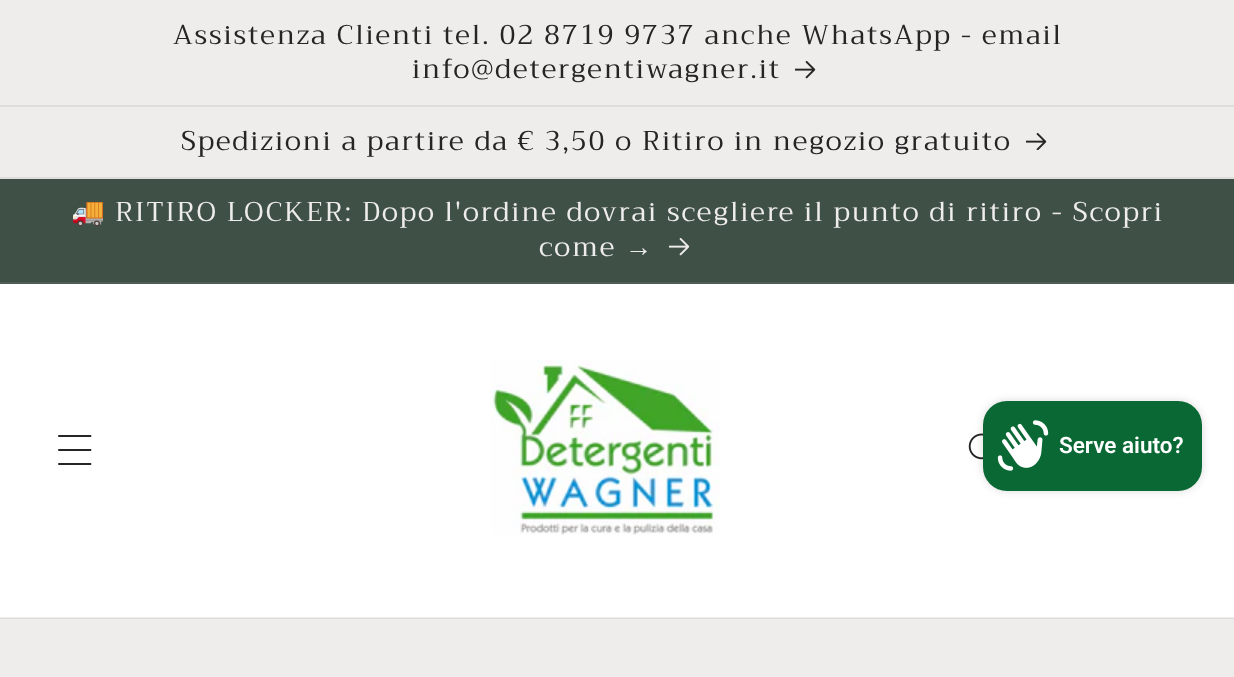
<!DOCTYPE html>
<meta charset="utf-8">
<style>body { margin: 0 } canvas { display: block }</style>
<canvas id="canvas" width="1234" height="677"></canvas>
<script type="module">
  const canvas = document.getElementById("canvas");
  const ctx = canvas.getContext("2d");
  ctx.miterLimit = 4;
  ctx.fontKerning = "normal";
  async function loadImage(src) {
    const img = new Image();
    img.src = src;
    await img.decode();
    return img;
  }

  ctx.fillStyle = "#efecec";
  ctx.fillRect(0, 0, 1234, 677);
  ctx.fillStyle = "#dfdcdc";
  ctx.fillRect(0, 618, 1234, 1);
  ctx.fillRect(0, 105, 1234, 2);
  ctx.letterSpacing = "1.8px";
  ctx.font = "27.3px Trirong";
  ctx.fillStyle = "#252525";
  ctx.fillText("Assistenza Clienti tel. 02 8719 9737 anche WhatsApp - email", 173, 44);
  ctx.fillText("info@detergentiwagner.it", 412, 78);
  ctx.drawImage(await loadImage("img1.png"), 795, 61, 21, 18);
  ctx.fillStyle = "#dfdcdc";
  ctx.fillRect(0, 177, 1234, 2);
  ctx.fillStyle = "#252525";
  ctx.fillText("Spedizioni a partire da € 3,50 o Ritiro in negozio gratuito", 181, 150);
  ctx.drawImage(await loadImage("img2.png"), 1026, 133, 21, 17);
  ctx.fillStyle = "#3f5147";
  ctx.fillRect(0, 179, 1234, 103);
  ctx.fillStyle = "#4d5d54";
  ctx.fillRect(0, 282, 1234, 2);
  ctx.font = "27.3px Noto Color Emoji";
  ctx.fillStyle = "#efecec";
  ctx.fillText("🚚", 71, 221);
  ctx.font = "27.3px Trirong";
  ctx.fillText("RITIRO LOCKER: Dopo l'ordine dovrai scegliere il punto di ritiro - Scopri", 115, 221);
  ctx.fillText("come", 539, 256);
  ctx.font = "27.3px Liberation Serif";
  ctx.fillText("→", 625, 256);
  ctx.drawImage(await loadImage("img3.png"), 669, 238, 21, 18);
  ctx.fillStyle = "#ffffff";
  ctx.fillRect(0, 284, 1234, 333);
  ctx.drawImage(await loadImage("img4.png"), 58, 435, 34, 30);
  ctx.drawImage(await loadImage("img5.png"), 490, 360, 230, 175);
  ctx.drawImage(await loadImage("img6.png"), 968, 433, 15, 27);
  ctx.fillStyle = "rgba(0, 0, 0, 0.15)";
  ctx.filter = "blur(4px)";
  ctx.beginPath();
  ctx.roundRect(983, 401, 219, 90, 24);
  ctx.fill();
  ctx.filter = "none";
  ctx.fillStyle = "#096834";
  ctx.beginPath();
  ctx.roundRect(983, 401, 219, 90, 24);
  ctx.fill();
  ctx.drawImage(await loadImage("img7.png"), 997, 420, 52, 51);
  ctx.letterSpacing = "0px";
  ctx.font = "600 22.5px Roboto";
  ctx.fillStyle = "#ffffff";
  ctx.fillText("Serve aiuto?", 1059, 453);
</script>
